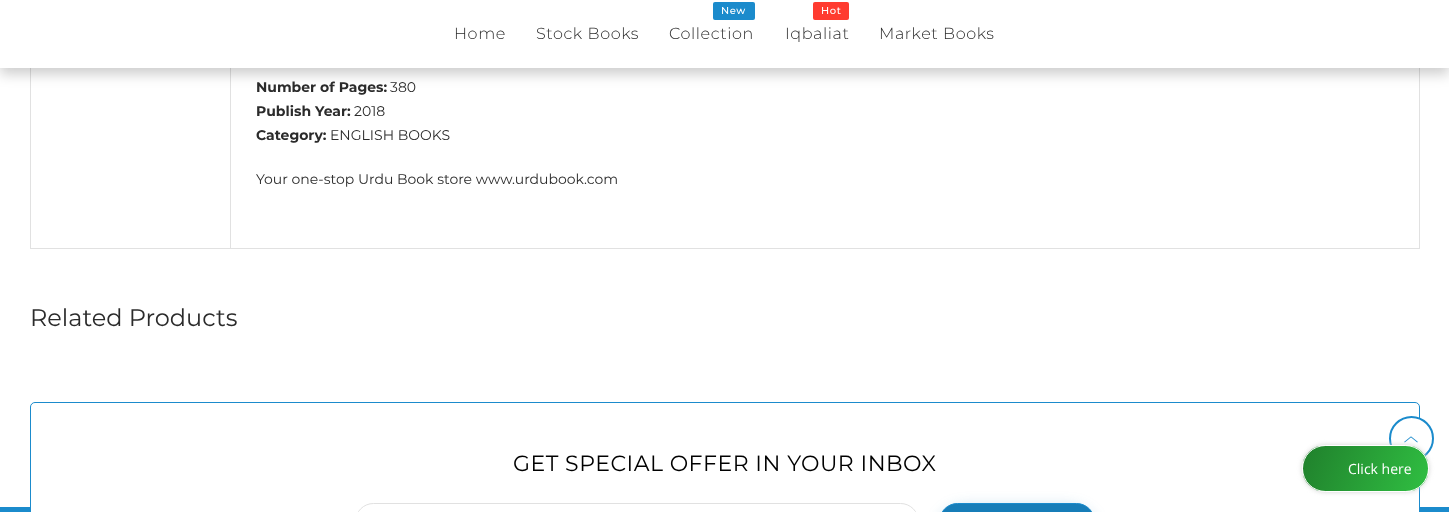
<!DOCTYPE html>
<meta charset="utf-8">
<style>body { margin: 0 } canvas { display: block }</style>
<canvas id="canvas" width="1449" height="512"></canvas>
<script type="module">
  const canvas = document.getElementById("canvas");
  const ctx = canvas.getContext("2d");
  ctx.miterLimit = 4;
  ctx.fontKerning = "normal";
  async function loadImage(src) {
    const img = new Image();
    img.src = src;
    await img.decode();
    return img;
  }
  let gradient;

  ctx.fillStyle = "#ffffff";
  ctx.fillRect(0, 0, 1449, 512);
  ctx.strokeStyle = "#e1e1e1";
  ctx.strokeRect(30.5, -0.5, 1389, 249);
  ctx.fillStyle = "#e1e1e1";
  ctx.fillRect(230, 68, 1, 180);
  ctx.fillStyle = "rgba(0, 0, 0, 0.2)";
  ctx.filter = "blur(6.5px)";
  ctx.beginPath();
  ctx.rect(0, 6, 1449, 68);
  ctx.fill();
  ctx.filter = "none";
  ctx.fillStyle = "#ffffff";
  ctx.fillRect(0, 0, 1449, 68);
  ctx.letterSpacing = "0.6px";
  ctx.font = "300 16px Montserrat";
  ctx.fillStyle = "#2b2b2b";
  ctx.fillText("Home", 454, 39);
  ctx.fillText("Stock Books", 536, 39);
  ctx.fillStyle = "#1b8bcc";
  ctx.beginPath();
  ctx.roundRect(713, 2, 42, 18, 2);
  ctx.fill();
  ctx.font = "500 10px Montserrat";
  ctx.fillStyle = "#ffffff";
  ctx.fillText("New", 721, 14);
  ctx.font = "300 16px Montserrat";
  ctx.fillStyle = "#2b2b2b";
  ctx.fillText("Collection", 669, 39);
  ctx.fillStyle = "#ff3b30";
  ctx.beginPath();
  ctx.roundRect(813, 2, 36, 18, 2);
  ctx.fill();
  ctx.font = "500 10px Montserrat";
  ctx.fillStyle = "#ffffff";
  ctx.fillText("Hot", 821, 14);
  ctx.font = "300 16px Montserrat";
  ctx.fillStyle = "#2b2b2b";
  ctx.fillText("Iqbaliat", 785, 39);
  ctx.fillText("Market Books", 879, 39);
  ctx.letterSpacing = "0px";
  ctx.font = "bold 14px Montserrat";
  ctx.fillText("Number of Pages:", 256, 92);
  ctx.font = "14px Montserrat";
  ctx.fillText("380", 390, 92);
  ctx.font = "bold 14px Montserrat";
  ctx.fillText("Publish Year:", 256, 116);
  ctx.font = "14px Montserrat";
  ctx.fillText("2018", 354, 116);
  ctx.font = "bold 14px Montserrat";
  ctx.fillText("Category:", 256, 140);
  ctx.font = "14px Montserrat";
  ctx.fillText("ENGLISH BOOKS", 330, 140);
  ctx.fillText("Your one-stop Urdu Book store www.urdubook.com", 256, 184);
  ctx.font = "24px Montserrat";
  ctx.fillText("Related Products", 30, 326);
  ctx.fillStyle = "#1b8bcc";
  ctx.fillRect(0, 507, 1449, 5);
  ctx.fillStyle = "#ffffff";
  ctx.fillRect(30, 507, 1390, 5);
  ctx.beginPath();
  ctx.roundRect(30.5, 402.5, 1389, 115, 4.5);
  ctx.strokeStyle = "#1b8bcc";
  ctx.stroke();
  ctx.letterSpacing = "0.5px";
  ctx.font = "22px Montserrat";
  ctx.fillStyle = "#000000";
  ctx.fillText("GET SPECIAL OFFER IN YOUR INBOX", 513, 471);
  ctx.beginPath();
  ctx.roundRect(355.5, 503.5, 563, 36, 26);
  ctx.strokeStyle = "#e1e1e1";
  ctx.stroke();
  ctx.fillStyle = "rgba(23, 125, 184, 0.36)";
  ctx.filter = "blur(7.5px)";
  ctx.beginPath();
  ctx.roundRect(939, 508, 156, 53, 26.5);
  ctx.fill();
  ctx.filter = "none";
  ctx.fillStyle = "#177db8";
  ctx.beginPath();
  ctx.roundRect(939.5, 503.5, 155, 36, 26);
  ctx.fill();
  ctx.strokeStyle = "#1b8bcc";
  ctx.stroke();
  ctx.fillStyle = "#ffffff";
  ctx.beginPath();
  ctx.arc(1411.5, 438.5, 21.5, 0, Math.PI * 2);
  ctx.fill();
  ctx.lineWidth = 2;
  ctx.stroke();
  ctx.drawImage(await loadImage("img1.png"), 1404, 436, 14, 7);
  ctx.fillStyle = "#d3d3d3";
  ctx.filter = "blur(2.5px)";
  ctx.beginPath();
  ctx.roundRect(1302, 445, 127, 47, 23.5);
  ctx.fill();
  ctx.filter = "none";
  ctx.save();
  ctx.beginPath();
  ctx.roundRect(1302, 445, 127, 47, 23.5);
  ctx.clip();
  gradient = ctx.createLinearGradient(1304, 443, 1427, 494);
  gradient.addColorStop(0, "#20802c");
  gradient.addColorStop(0, "#20802c");
  gradient.addColorStop(1, "#30bf42");
  ctx.fillStyle = gradient;
  ctx.fillRect(1303, 446, 125, 45);
  ctx.restore();
  ctx.beginPath();
  ctx.roundRect(1302.5, 445.5, 126, 46, 23);
  ctx.strokeStyle = "#ffffff";
  ctx.lineWidth = 1;
  ctx.stroke();
  ctx.letterSpacing = "0px";
  ctx.font = "14px Open Sans";
  ctx.fillStyle = "#ffffff";
  ctx.fillText("Click here", 1348, 474);
</script>
